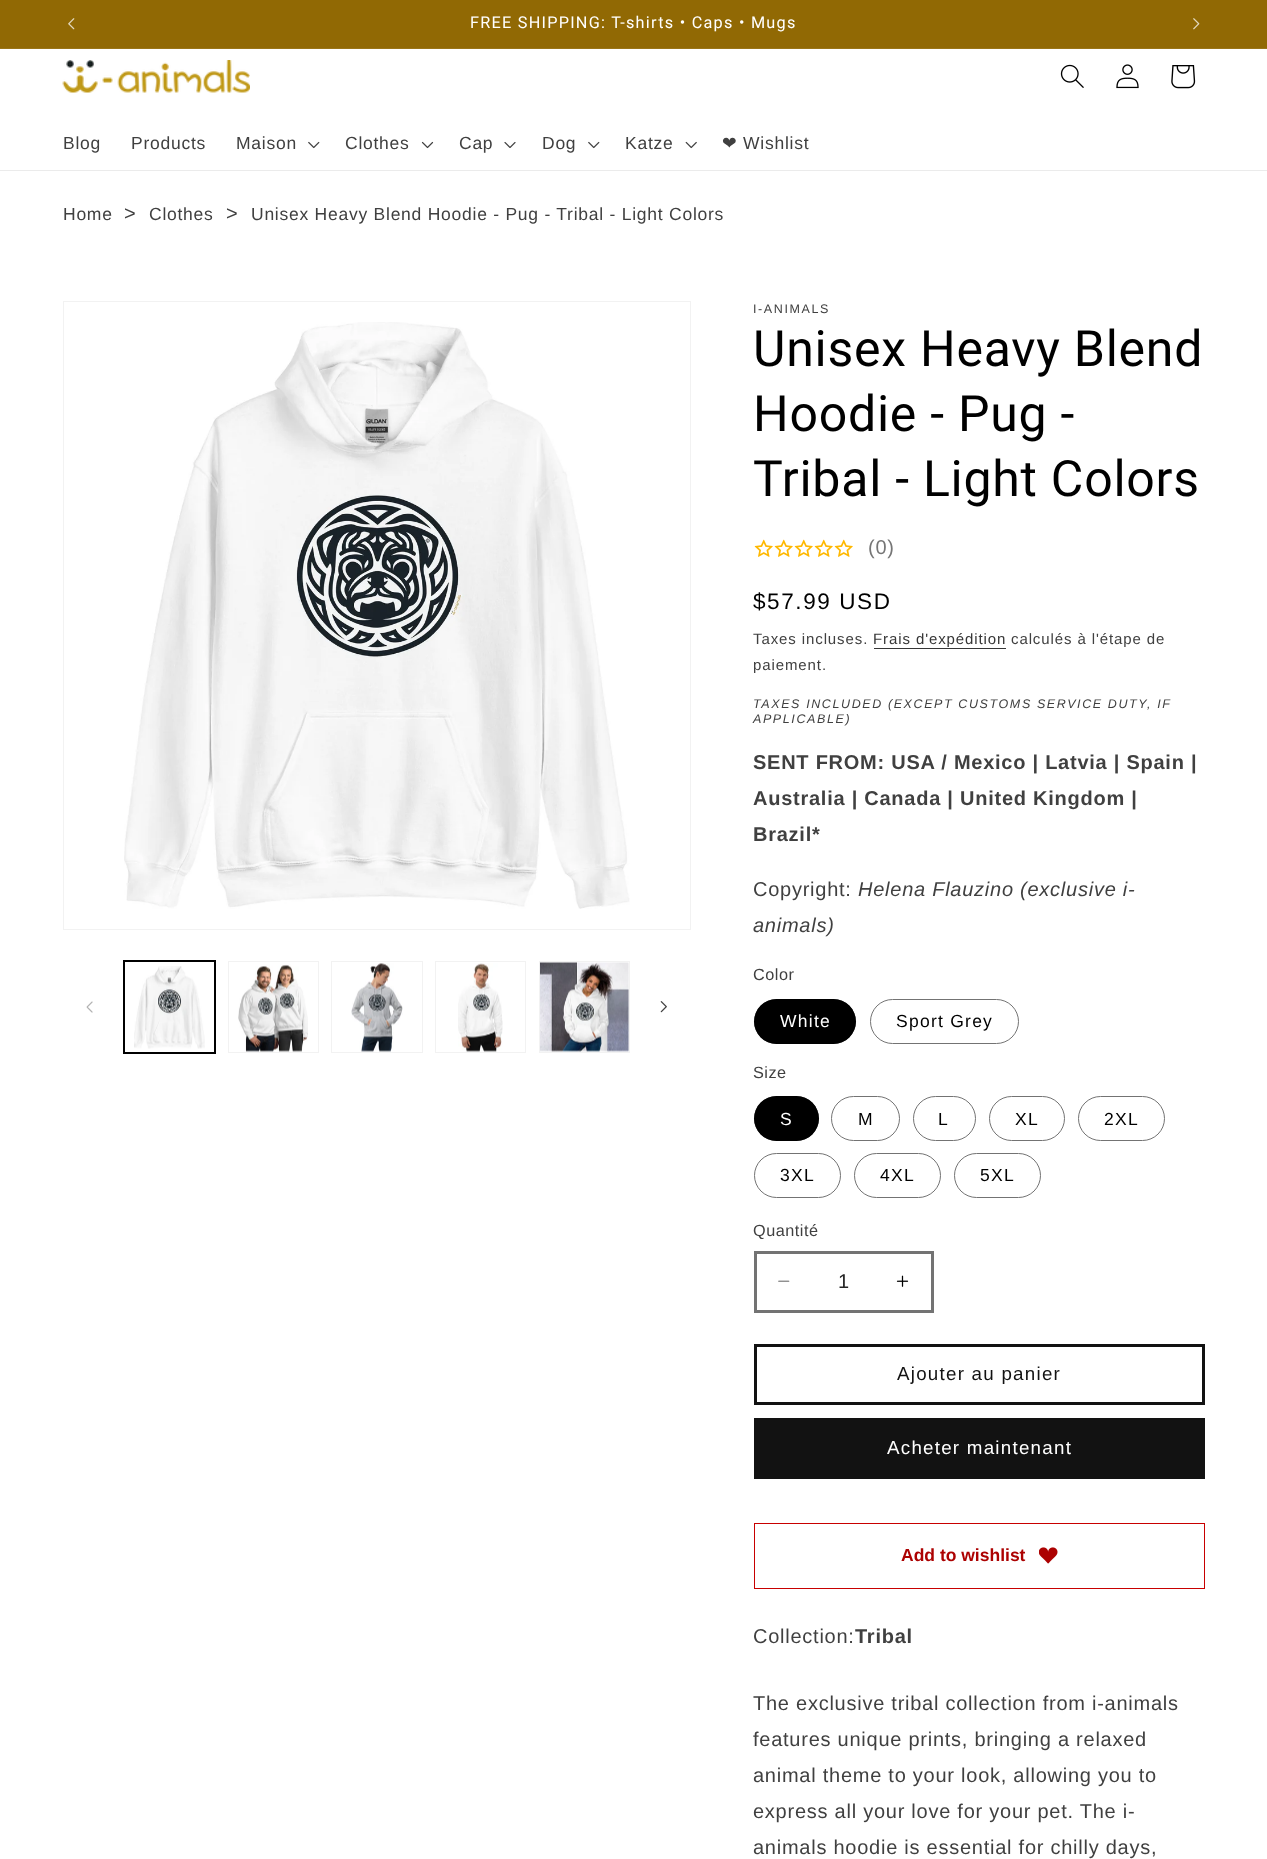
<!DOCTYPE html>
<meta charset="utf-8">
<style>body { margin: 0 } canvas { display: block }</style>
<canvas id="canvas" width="1267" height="1859"></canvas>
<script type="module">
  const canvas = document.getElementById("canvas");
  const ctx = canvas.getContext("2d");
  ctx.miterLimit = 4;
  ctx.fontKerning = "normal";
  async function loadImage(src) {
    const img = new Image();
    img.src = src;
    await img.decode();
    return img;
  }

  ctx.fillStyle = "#ffffff";
  ctx.fillRect(0, 0, 1267, 1859);
  ctx.fillStyle = "#916904";
  ctx.fillRect(0, 0, 1267, 48);
  ctx.fillStyle = "#9a7518";
  ctx.fillRect(0, 48, 1267, 1);
  ctx.drawImage(await loadImage("img1.png"), 68, 18, 7, 12);
  ctx.letterSpacing = "1.25px";
  ctx.font = "16.25px Roboto";
  ctx.fillStyle = "#ffffff";
  ctx.fillText("FREE SHIPPING: T-shirts • Caps • Mugs", 470, 28);
  ctx.drawImage(await loadImage("img2.png"), 1193, 18, 7, 12);
  ctx.fillStyle = "#ebebeb";
  ctx.fillRect(0, 170, 1267, 1);
  ctx.drawImage(await loadImage("img3.png"), 62, 60, 188, 33);
  ctx.drawImage(await loadImage("img4.png"), 1060, 64, 24, 24);
  ctx.drawImage(await loadImage("img5.png"), 1116, 64, 23, 25);
  ctx.drawImage(await loadImage("img6.png"), 1171, 65, 25, 24);
  ctx.letterSpacing = "0.75px";
  ctx.font = "17.5px Liberation Sans";
  ctx.fillStyle = "#404040";
  ctx.fillText("Blog", 63, 149);
  ctx.fillText("Products", 131, 149);
  ctx.fillText("Maison", 236, 149);
  ctx.drawImage(await loadImage("img7.png"), 308, 141, 12, 8);
  ctx.fillText("Clothes", 345, 149);
  ctx.drawImage(await loadImage("img8.png"), 421, 141, 13, 8);
  ctx.fillText("Cap", 459, 149);
  ctx.drawImage(await loadImage("img9.png"), 504, 142, 12, 6);
  ctx.fillText("Dog", 542, 149);
  ctx.drawImage(await loadImage("img7.png"), 588, 141, 12, 8);
  ctx.fillText("Katze", 625, 149);
  ctx.drawImage(await loadImage("img10.png"), 685, 141, 12, 8);
  ctx.font = "17.5px DejaVu Sans";
  ctx.fillText("❤", 722, 149);
  ctx.font = "17.5px Liberation Sans";
  ctx.fillText("Wishlist", 743, 149);
  ctx.fillText("Home", 63, 220);
  ctx.font = "20px Liberation Sans";
  ctx.fillText(">", 124, 220);
  ctx.font = "17.5px Liberation Sans";
  ctx.fillText("Clothes", 149, 220);
  ctx.font = "20px Liberation Sans";
  ctx.fillText(">", 226, 220);
  ctx.font = "17.5px Liberation Sans";
  ctx.fillText("Unisex Heavy Blend Hoodie - Pug - Tribal - Light Colors", 251, 220);
  ctx.strokeStyle = "#f2f2f2";
  ctx.strokeRect(63.5, 301.5, 627, 628);
  ctx.drawImage(await loadImage("img11.png"), 124, 322, 506, 587);
  ctx.drawImage(await loadImage("img12.png"), 86, 1001, 7, 12);
  ctx.strokeStyle = "#000000";
  ctx.strokeRect(123.5, 960.5, 92, 93);
  ctx.strokeRect(124.5, 961.5, 90, 91);
  ctx.drawImage(await loadImage("img13.png"), 134, 966, 71, 83);
  ctx.strokeStyle = "#f2f2f2";
  ctx.strokeRect(228.5, 961.5, 90, 91);
  ctx.drawImage(await loadImage("img14.png"), 238, 964, 70, 88);
  ctx.strokeRect(331.5, 961.5, 91, 91);
  ctx.drawImage(await loadImage("img15.png"), 351, 963, 52, 89);
  ctx.strokeRect(435.5, 961.5, 90, 91);
  ctx.drawImage(await loadImage("img16.png"), 458, 963, 45, 89);
  ctx.strokeRect(539.5, 961.5, 90, 91);
  ctx.drawImage(await loadImage("img17.png"), 540, 962, 89, 90);
  ctx.drawImage(await loadImage("img18.png"), 660, 1001, 7, 12);
  ctx.letterSpacing = "1.6px";
  ctx.font = "12.5px Liberation Sans";
  ctx.fillText("I-ANIMALS", 753, 313);
  ctx.letterSpacing = "0.75px";
  ctx.font = "50px Roboto";
  ctx.fillStyle = "#000000";
  ctx.fillText("Unisex Heavy Blend", 753, 366);
  ctx.fillText("Hoodie - Pug -", 753, 431);
  ctx.fillText("Tribal - Light Colors", 753, 496);
  ctx.drawImage(await loadImage("img19.png"), 754, 539, 19, 18);
  ctx.drawImage(await loadImage("img19.png"), 774, 539, 19, 18);
  ctx.drawImage(await loadImage("img19.png"), 794, 539, 19, 18);
  ctx.drawImage(await loadImage("img19.png"), 814, 539, 19, 18);
  ctx.drawImage(await loadImage("img19.png"), 834, 539, 19, 18);
  ctx.font = "20px Liberation Sans";
  ctx.fillStyle = "#767676";
  ctx.fillText("(0)", 868, 554);
  ctx.letterSpacing = "1.6px";
  ctx.font = "22.5px Liberation Sans";
  ctx.fillStyle = "#000000";
  ctx.fillText("$57.99 USD", 753, 609);
  ctx.letterSpacing = "0.9px";
  ctx.font = "15px Liberation Sans";
  ctx.fillStyle = "#404040";
  ctx.fillText("Taxes incluses.", 753, 644);
  ctx.fillStyle = "#363636";
  ctx.fillText("Frais d'expédition", 873, 644);
  ctx.fillRect(874, 648, 132, 1);
  ctx.fillStyle = "#404040";
  ctx.fillText("calculés à l'étape de", 1011, 644);
  ctx.fillText("paiement.", 753, 670);
  ctx.letterSpacing = "1.6px";
  ctx.font = "italic 12.5px Liberation Sans";
  ctx.fillText("TAXES INCLUDED (EXCEPT CUSTOMS SERVICE DUTY, IF", 753, 708);
  ctx.fillText("APPLICABLE)", 753, 723);
  ctx.letterSpacing = "0.75px";
  ctx.font = "bold 20px Liberation Sans";
  ctx.fillText("SENT FROM: USA / Mexico | Latvia | Spain |", 753, 769);
  ctx.fillText("Australia | Canada | United Kingdom |", 753, 805);
  ctx.fillText("Brazil*", 753, 841);
  ctx.font = "20px Liberation Sans";
  ctx.fillText("Copyright:", 753, 896);
  ctx.font = "italic 20px Liberation Sans";
  ctx.fillText("Helena Flauzino (exclusive i-", 858, 896);
  ctx.fillText("animals)", 753, 932);
  ctx.letterSpacing = "0.5px";
  ctx.font = "16.25px Liberation Sans";
  ctx.fillText("Color", 753, 980);
  ctx.fillStyle = "#000000";
  ctx.beginPath();
  ctx.roundRect(754, 999, 102, 45, 22.5);
  ctx.fill();
  ctx.beginPath();
  ctx.roundRect(754.5, 999.5, 101, 44, 22);
  ctx.strokeStyle = "rgba(0, 0, 0, 0.55)";
  ctx.stroke();
  ctx.letterSpacing = "1.25px";
  ctx.font = "17.5px Liberation Sans";
  ctx.fillStyle = "#ffffff";
  ctx.fillText("White", 780, 1027);
  ctx.beginPath();
  ctx.roundRect(870.5, 999.5, 148, 44, 22);
  ctx.strokeStyle = "#737373";
  ctx.stroke();
  ctx.fillStyle = "#000000";
  ctx.fillText("Sport Grey", 896, 1027);
  ctx.letterSpacing = "0.5px";
  ctx.font = "16.25px Liberation Sans";
  ctx.fillStyle = "#404040";
  ctx.fillText("Size", 753, 1078);
  ctx.fillStyle = "#000000";
  ctx.beginPath();
  ctx.roundRect(754, 1096, 65, 45, 22.5);
  ctx.fill();
  ctx.beginPath();
  ctx.roundRect(754.5, 1096.5, 64, 44, 22);
  ctx.strokeStyle = "rgba(0, 0, 0, 0.55)";
  ctx.stroke();
  ctx.letterSpacing = "1.25px";
  ctx.font = "17.5px Liberation Sans";
  ctx.fillStyle = "#ffffff";
  ctx.fillText("S", 780, 1125);
  ctx.beginPath();
  ctx.roundRect(831.5, 1096.5, 68, 44, 22);
  ctx.strokeStyle = "#737373";
  ctx.stroke();
  ctx.fillStyle = "#000000";
  ctx.fillText("M", 858, 1125);
  ctx.beginPath();
  ctx.roundRect(913.5, 1096.5, 62, 44, 22);
  ctx.stroke();
  ctx.fillText("L", 938, 1125);
  ctx.beginPath();
  ctx.roundRect(989.5, 1096.5, 75, 44, 22);
  ctx.stroke();
  ctx.fillText("XL", 1015, 1125);
  ctx.beginPath();
  ctx.roundRect(1078.5, 1096.5, 86, 44, 22);
  ctx.stroke();
  ctx.fillText("2XL", 1104, 1125);
  ctx.beginPath();
  ctx.roundRect(754.5, 1153.5, 86, 44, 22);
  ctx.stroke();
  ctx.fillText("3XL", 780, 1181);
  ctx.beginPath();
  ctx.roundRect(854.5, 1153.5, 86, 44, 22);
  ctx.stroke();
  ctx.fillText("4XL", 880, 1181);
  ctx.beginPath();
  ctx.roundRect(954.5, 1153.5, 86, 44, 22);
  ctx.stroke();
  ctx.fillText("5XL", 980, 1181);
  ctx.letterSpacing = "0.5px";
  ctx.font = "16.25px Liberation Sans";
  ctx.fillStyle = "#404040";
  ctx.fillText("Quantité", 753, 1236);
  ctx.drawImage(await loadImage("img20.png"), 778, 1280, 12, 2);
  ctx.drawImage(await loadImage("img21.png"), 896, 1275, 13, 12);
  ctx.lineWidth = 3;
  ctx.strokeRect(755.5, 1252.5, 177, 59);
  ctx.letterSpacing = "0px";
  ctx.font = "20px Liberation Sans";
  ctx.fillStyle = "#262626";
  ctx.fillText("1", 838, 1288);
  ctx.strokeStyle = "#121212";
  ctx.strokeRect(755.5, 1345.5, 448, 58);
  ctx.letterSpacing = "1.25px";
  ctx.font = "18.75px Liberation Sans";
  ctx.fillStyle = "#121212";
  ctx.fillText("Ajouter au panier", 897, 1380);
  ctx.fillRect(754, 1418, 451, 61);
  ctx.fillStyle = "#ffffff";
  ctx.fillText("Acheter maintenant", 887, 1454);
  ctx.strokeStyle = "#c80000";
  ctx.lineWidth = 1;
  ctx.strokeRect(754.5, 1523.5, 450, 65);
  ctx.letterSpacing = "0px";
  ctx.font = "bold 17.5px Liberation Sans";
  ctx.fillStyle = "#ac0202";
  ctx.fillText("Add to wishlist", 901, 1561);
  ctx.drawImage(await loadImage("img22.png"), 1039, 1547, 19, 17);
  ctx.letterSpacing = "0.75px";
  ctx.font = "20px Liberation Sans";
  ctx.fillStyle = "#404040";
  ctx.fillText("Collection:", 753, 1643);
  ctx.font = "bold 20px Liberation Sans";
  ctx.fillText("Tribal", 855, 1643);
  ctx.font = "20px Liberation Sans";
  ctx.fillText("The exclusive tribal collection from i-animals", 753, 1710);
  ctx.fillText("features unique prints, bringing a relaxed", 753, 1746);
  ctx.fillText("animal theme to your look, allowing you to", 753, 1782);
  ctx.fillText("express all your love for your pet. The i-", 753, 1818);
  ctx.fillText("animals hoodie is essential for chilly days,", 753, 1854);
</script>
